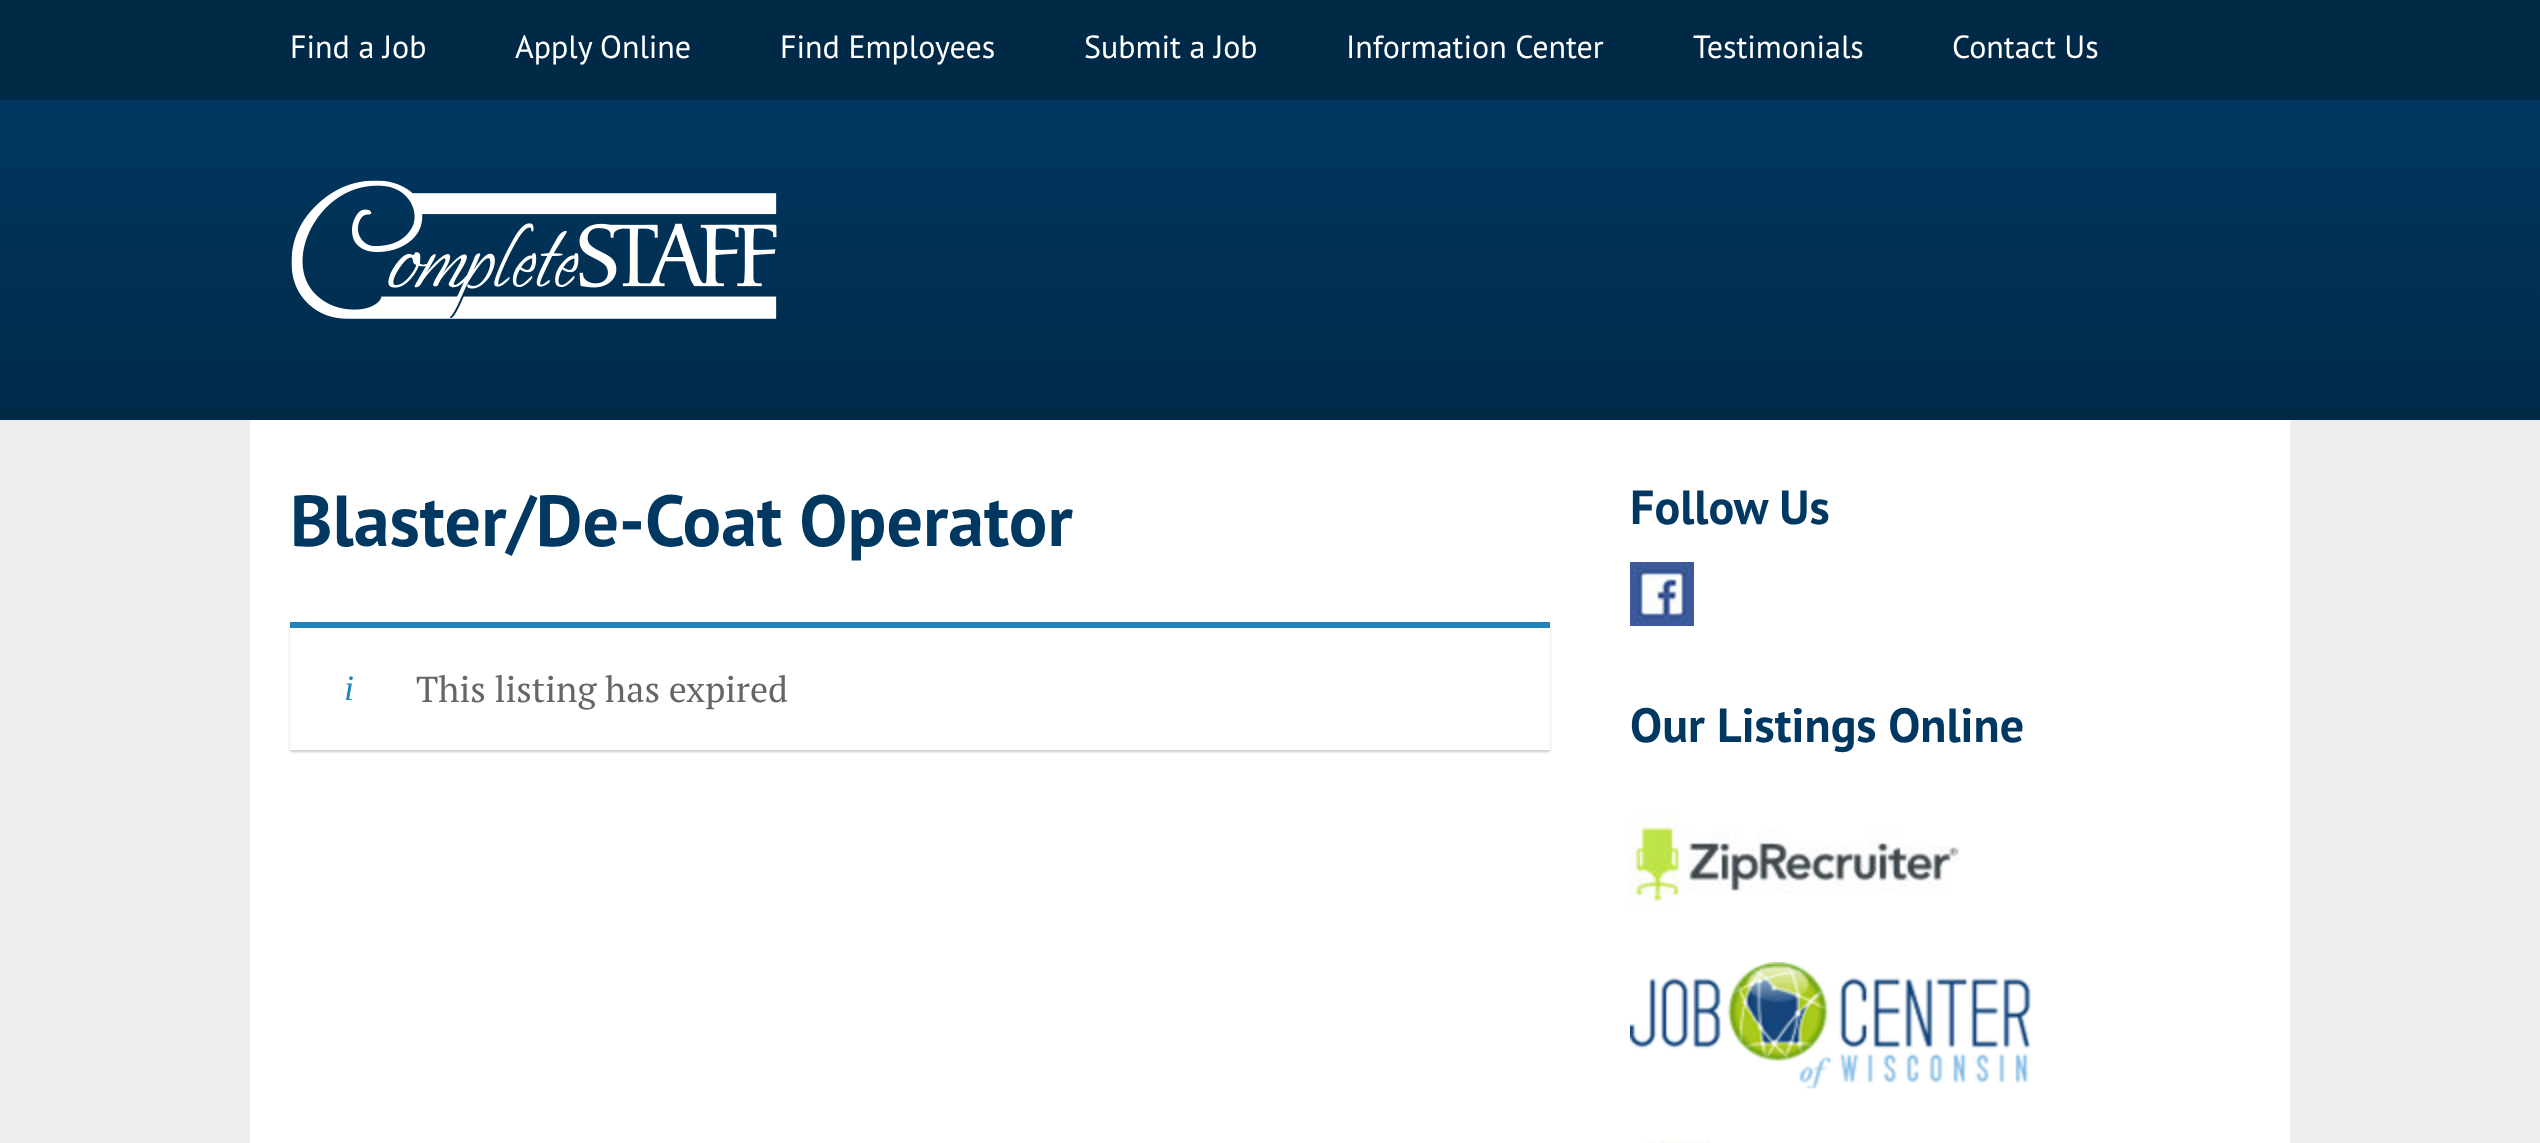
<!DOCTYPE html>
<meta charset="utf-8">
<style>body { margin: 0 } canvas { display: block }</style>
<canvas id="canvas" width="2540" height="1143"></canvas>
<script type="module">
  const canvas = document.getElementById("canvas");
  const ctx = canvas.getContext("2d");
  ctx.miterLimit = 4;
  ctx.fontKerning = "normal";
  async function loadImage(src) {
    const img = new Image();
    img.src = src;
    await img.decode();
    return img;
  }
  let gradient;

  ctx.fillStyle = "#eeeeee";
  ctx.fillRect(0, 0, 2540, 1143);
  ctx.fillStyle = "#002948";
  ctx.fillRect(0, 0, 2540, 100);
  ctx.font = "32px PT Sans";
  ctx.fillStyle = "#ffffff";
  ctx.fillText("Find a Job", 290, 58);
  ctx.fillText("Apply Online", 515, 58);
  ctx.fillText("Find Employees", 780, 58);
  ctx.fillText("Submit a Job", 1084, 58);
  ctx.fillText("Information Center", 1346, 58);
  ctx.fillText("Testimonials", 1693, 58);
  ctx.fillText("Contact Us", 1952, 58);
  gradient = ctx.createLinearGradient(1270, 100, 1270, 420);
  gradient.addColorStop(0, "#003861");
  gradient.addColorStop(1, "#002948");
  ctx.fillStyle = gradient;
  ctx.fillRect(0, 100, 2540, 320);
  ctx.drawImage(await loadImage("img1.png"), 291, 180, 486, 139);
  ctx.fillStyle = "#ffffff";
  ctx.fillRect(250, 420, 2040, 723);
  ctx.font = "bold 72px PT Sans";
  ctx.fillStyle = "#003861";
  ctx.fillText("Blaster/De-Coat Operator", 290, 546);
  ctx.save();
  ctx.beginPath();
  ctx.moveTo(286, 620);
  ctx.lineTo(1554, 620);
  ctx.lineTo(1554, 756);
  ctx.lineTo(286, 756);
  ctx.closePath();
  ctx.moveTo(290, 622);
  ctx.lineTo(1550, 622);
  ctx.lineTo(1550, 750);
  ctx.lineTo(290, 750);
  ctx.closePath();
  ctx.clip("evenodd");
  ctx.fillStyle = "rgba(0, 0, 0, 0.2)";
  ctx.filter = "blur(1px)";
  ctx.beginPath();
  ctx.rect(290, 624, 1260, 128);
  ctx.fill();
  ctx.filter = "none";
  ctx.restore();
  ctx.fillStyle = "#1e85be";
  ctx.fillRect(290, 622, 1260, 6);
  ctx.font = "italic 36px Liberation Serif";
  ctx.fillText("i", 344, 700);
  ctx.font = "36px PT Serif";
  ctx.fillStyle = "#666666";
  ctx.fillText("This listing has expired", 416, 702);
  ctx.font = "bold 48px PT Sans";
  ctx.fillStyle = "#003861";
  ctx.fillText("Follow Us", 1630, 524);
  ctx.drawImage(await loadImage("img2.png"), 1630, 562, 64, 64);
  ctx.fillText("Our Listings Online", 1630, 742);
  ctx.drawImage(await loadImage("img3.png"), 1630, 814, 330, 96);
  ctx.drawImage(await loadImage("img4.png"), 1630, 962, 401, 127);
  ctx.drawImage(await loadImage("img5.png"), 1646, 1140, 64, 3);
</script>
